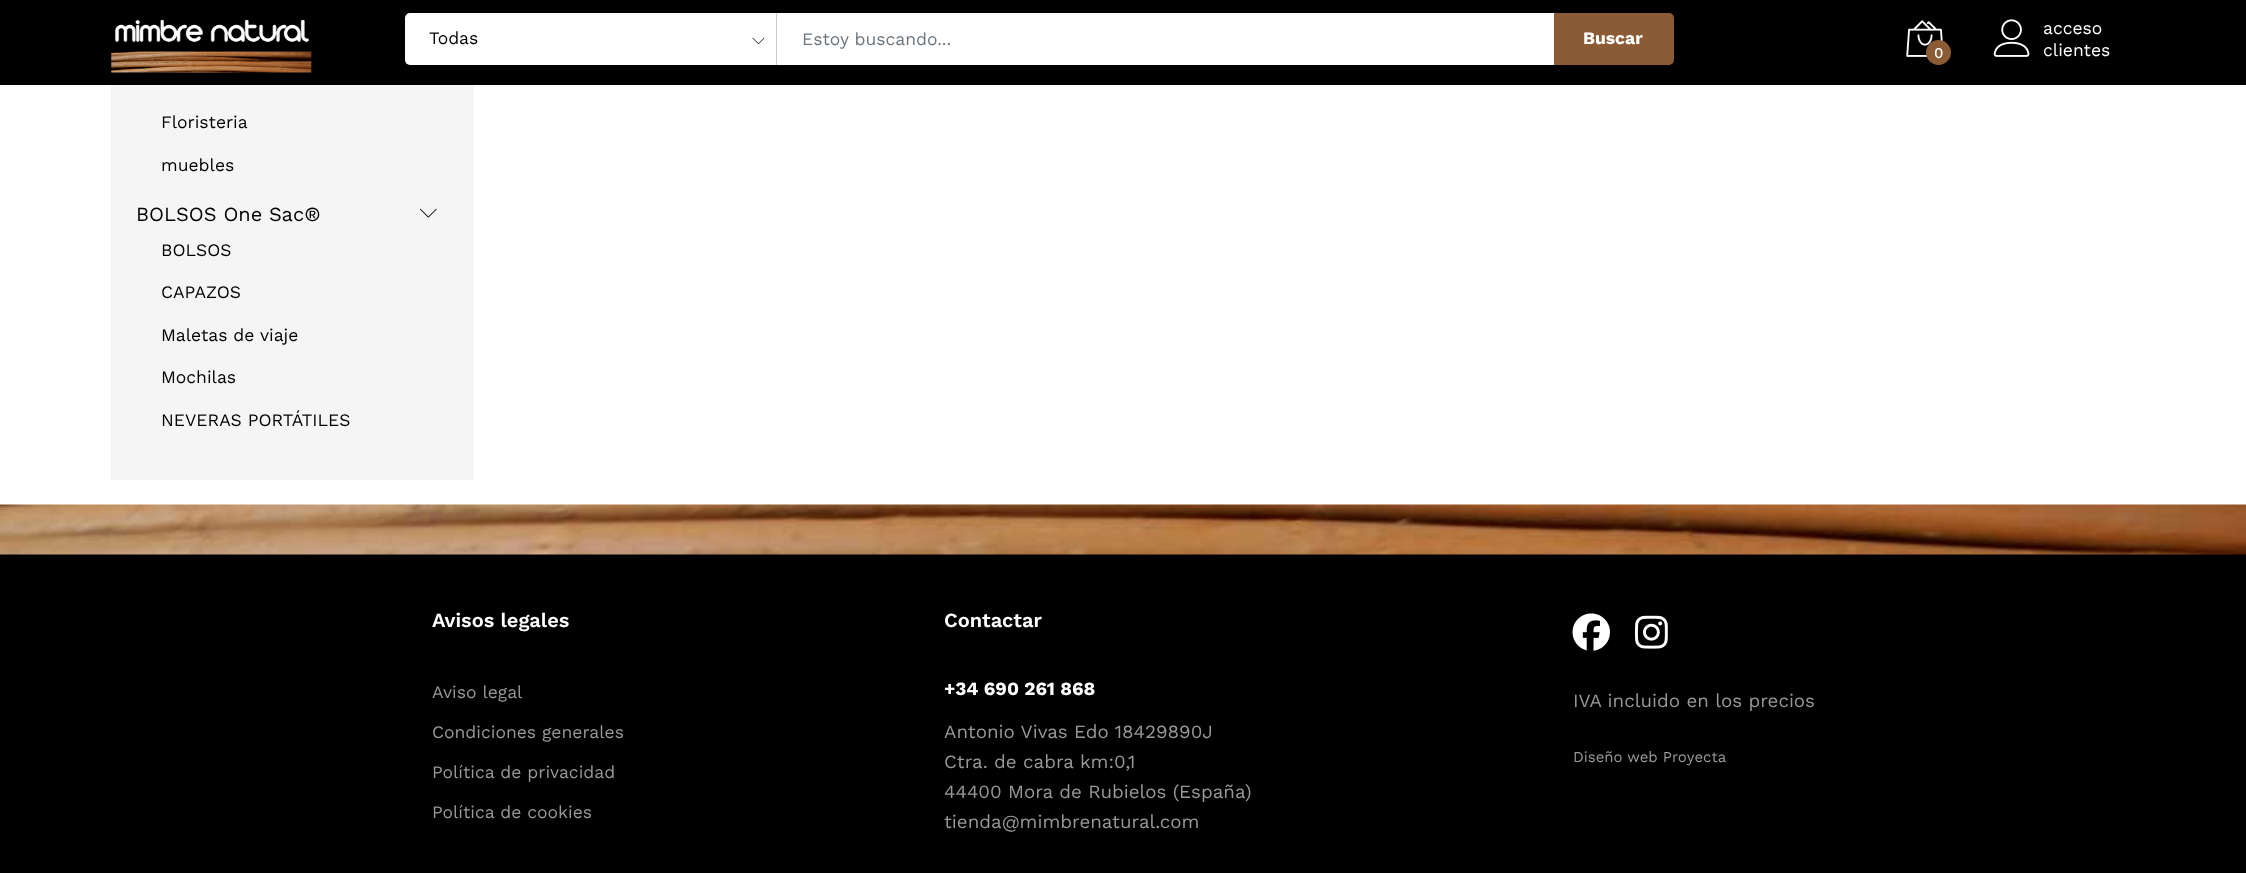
<!DOCTYPE html>
<meta charset="utf-8">
<style>body { margin: 0 } canvas { display: block }</style>
<canvas id="canvas" width="2246" height="873"></canvas>
<script type="module">
  const canvas = document.getElementById("canvas");
  const ctx = canvas.getContext("2d");
  ctx.miterLimit = 4;
  ctx.fontKerning = "normal";
  async function loadImage(src) {
    const img = new Image();
    img.src = src;
    await img.decode();
    return img;
  }

  ctx.fillStyle = "#ffffff";
  ctx.fillRect(0, 0, 2246, 873);
  ctx.fillStyle = "#000000";
  ctx.fillRect(0, 0, 2246, 85);
  ctx.drawImage(await loadImage("img1.png"), 110, 19, 202, 54);
  ctx.fillStyle = "#ffffff";
  ctx.beginPath();
  ctx.roundRect(405, 13, 373, 52, [5, 0, 0, 5]);
  ctx.fill();
  ctx.fillStyle = "#cccccc";
  ctx.fillRect(776, 13, 1, 52);
  ctx.font = "17.5px Work Sans";
  ctx.fillStyle = "#000000";
  ctx.fillText("Todas", 429, 44);
  ctx.drawImage(await loadImage("img2.png"), 752, 37, 13, 7);
  ctx.fillStyle = "#ffffff";
  ctx.fillRect(778, 13, 776, 52);
  ctx.fillStyle = "#6c757d";
  ctx.fillText("Estoy buscando...", 802, 45);
  ctx.fillStyle = "#8b5b35";
  ctx.beginPath();
  ctx.roundRect(1554, 13, 120, 52, [0, 5, 5, 0]);
  ctx.fill();
  ctx.font = "bold 17.5px Work Sans";
  ctx.fillStyle = "#ffffff";
  ctx.fillText("Buscar", 1583, 44);
  ctx.drawImage(await loadImage("img3.png"), 1906, 20, 37, 37);
  ctx.fillStyle = "#8b5b35";
  ctx.beginPath();
  ctx.arc(1938.5, 52.5, 12.5, 0, Math.PI * 2);
  ctx.fill();
  ctx.font = "500 15px Work Sans";
  ctx.fillStyle = "#ffffff";
  ctx.fillText("0", 1934, 58);
  ctx.drawImage(await loadImage("img4.png"), 1993, 19, 37, 38);
  ctx.font = "17.5px Work Sans";
  ctx.fillText("acceso", 2043, 34);
  ctx.fillText("clientes", 2043, 56);
  ctx.fillStyle = "#f5f5f5";
  ctx.fillRect(111, 85, 363, 395);
  ctx.fillStyle = "#000000";
  ctx.fillText("Floristeria", 161, 128);
  ctx.fillText("muebles", 161, 171);
  ctx.font = "20px Work Sans";
  ctx.fillText("BOLSOS One Sac®", 136, 221);
  ctx.drawImage(await loadImage("img5.png"), 420, 208, 17, 10);
  ctx.font = "17.5px Work Sans";
  ctx.fillText("BOLSOS", 161, 256);
  ctx.fillText("CAPAZOS", 161, 298);
  ctx.fillText("Maletas de viaje", 161, 341);
  ctx.fillText("Mochilas", 161, 383);
  ctx.fillText("NEVERAS PORTÁTILES", 161, 426);
  ctx.fillRect(0, 554, 2246, 319);
  ctx.drawImage(await loadImage("img6.png"), 0, 504, 2246, 51);
  ctx.font = "600 20px Work Sans";
  ctx.fillStyle = "#ffffff";
  ctx.fillText("Avisos legales", 432, 627);
  ctx.font = "17.5px Work Sans";
  ctx.fillStyle = "#999999";
  ctx.fillText("Aviso legal", 432, 698);
  ctx.fillText("Condiciones generales", 432, 738);
  ctx.fillText("Política de privacidad", 432, 778);
  ctx.fillText("Política de cookies", 432, 818);
  ctx.font = "600 20px Work Sans";
  ctx.fillStyle = "#ffffff";
  ctx.fillText("Contactar", 944, 627);
  ctx.font = "bold 18.75px Work Sans";
  ctx.fillText("+34 690 261 868", 944, 695);
  ctx.font = "18.75px Work Sans";
  ctx.fillStyle = "#999999";
  ctx.fillText("Antonio Vivas Edo 18429890J", 944, 738);
  ctx.fillText("Ctra. de cabra km:0,1", 944, 768);
  ctx.fillText("44400 Mora de Rubielos (España)", 944, 798);
  ctx.fillText("tienda@mimbrenatural.com", 944, 828);
  ctx.drawImage(await loadImage("img7.png"), 1572, 613, 38, 38);
  ctx.drawImage(await loadImage("img8.png"), 1635, 615, 33, 34);
  ctx.fillText("IVA incluido en los precios", 1573, 707);
  ctx.font = "15px Work Sans";
  ctx.fillText("Diseño web Proyecta", 1573, 762);
</script>
